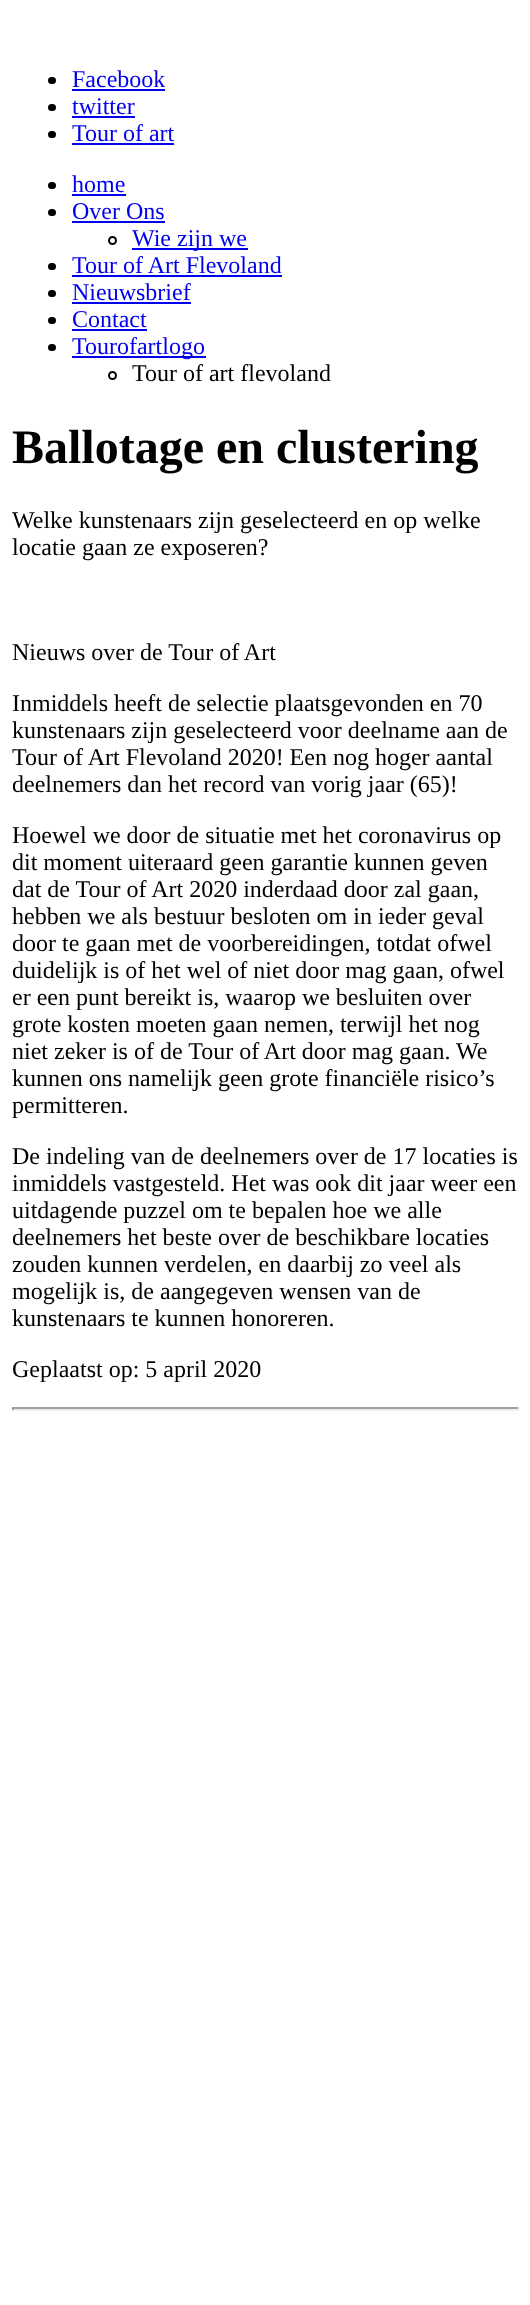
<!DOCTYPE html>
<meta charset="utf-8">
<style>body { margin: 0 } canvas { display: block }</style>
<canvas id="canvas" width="530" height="2305"></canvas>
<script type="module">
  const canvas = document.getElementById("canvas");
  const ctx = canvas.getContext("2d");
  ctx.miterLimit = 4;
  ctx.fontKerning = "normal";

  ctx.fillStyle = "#ffffff";
  ctx.fillRect(0, 0, 530, 2305);
  ctx.fillStyle = "#000000";
  ctx.beginPath();
  ctx.roundRect(48, 77, 8, 7, 3.5);
  ctx.fill();
  ctx.font = "24px Liberation Serif";
  ctx.fillStyle = "#0000ee";
  ctx.fillText("Facebook", 72, 87);
  ctx.fillRect(72, 89, 93, 2);
  ctx.fillStyle = "#000000";
  ctx.beginPath();
  ctx.roundRect(48, 104, 8, 7, 3.5);
  ctx.fill();
  ctx.fillStyle = "#0000ee";
  ctx.fillText("twitter", 72, 114);
  ctx.fillRect(72, 116, 63, 2);
  ctx.fillStyle = "#000000";
  ctx.beginPath();
  ctx.roundRect(48, 131, 8, 7, 3.5);
  ctx.fill();
  ctx.fillStyle = "#0000ee";
  ctx.fillText("Tour of art", 72, 141);
  ctx.fillRect(72, 143, 102, 2);
  ctx.fillStyle = "#000000";
  ctx.beginPath();
  ctx.roundRect(48, 182, 8, 7, 3.5);
  ctx.fill();
  ctx.fillStyle = "#0000ee";
  ctx.fillText("home", 72, 192);
  ctx.fillRect(72, 194, 54, 2);
  ctx.fillStyle = "#000000";
  ctx.beginPath();
  ctx.roundRect(48, 209, 8, 7, 3.5);
  ctx.fill();
  ctx.fillStyle = "#0000ee";
  ctx.fillText("Over Ons", 72, 219);
  ctx.fillRect(72, 221, 93, 2);
  ctx.beginPath();
  ctx.arc(112.5, 240.5, 3.5, 0, Math.PI * 2);
  ctx.strokeStyle = "#000000";
  ctx.lineWidth = 2;
  ctx.stroke();
  ctx.fillRect(132, 248, 116, 2);
  ctx.fillText("Wie zijn we", 132, 246);
  ctx.fillStyle = "#000000";
  ctx.beginPath();
  ctx.roundRect(48, 263, 8, 7, 3.5);
  ctx.fill();
  ctx.fillStyle = "#0000ee";
  ctx.fillText("Tour of Art Flevoland", 72, 273);
  ctx.fillRect(72, 275, 210, 2);
  ctx.fillStyle = "#000000";
  ctx.beginPath();
  ctx.roundRect(48, 290, 8, 7, 3.5);
  ctx.fill();
  ctx.fillStyle = "#0000ee";
  ctx.fillText("Nieuwsbrief", 72, 300);
  ctx.fillRect(72, 302, 119, 2);
  ctx.fillStyle = "#000000";
  ctx.beginPath();
  ctx.roundRect(48, 317, 8, 7, 3.5);
  ctx.fill();
  ctx.fillStyle = "#0000ee";
  ctx.fillText("Contact", 72, 327);
  ctx.fillRect(72, 329, 75, 2);
  ctx.fillStyle = "#000000";
  ctx.beginPath();
  ctx.roundRect(48, 344, 8, 7, 3.5);
  ctx.fill();
  ctx.fillStyle = "#0000ee";
  ctx.fillRect(72, 356, 134, 2);
  ctx.fillText("Tourofartlogo", 72, 354);
  ctx.beginPath();
  ctx.arc(112.5, 375.5, 3.5, 0, Math.PI * 2);
  ctx.stroke();
  ctx.fillStyle = "#000000";
  ctx.fillText("Tour of art flevoland", 132, 381);
  ctx.font = "bold 48px Liberation Serif";
  ctx.fillText("Ballotage en clustering", 12, 463);
  ctx.font = "24px Liberation Serif";
  ctx.fillText("Welke kunstenaars zijn geselecteerd en op welke", 12, 528);
  ctx.fillText("locatie gaan ze exposeren?", 12, 555);
  ctx.fillText("Nieuws over de Tour of Art", 12, 660);
  ctx.fillText("Inmiddels heeft de selectie plaatsgevonden en 70", 12, 711);
  ctx.fillText("kunstenaars zijn geselecteerd voor deelname aan de", 12, 738);
  ctx.fillText("Tour of Art Flevoland 2020! Een nog hoger aantal", 12, 765);
  ctx.fillText("deelnemers dan het record van vorig jaar (65)!", 12, 792);
  ctx.fillText("Hoewel we door de situatie met het coronavirus op", 12, 843);
  ctx.fillText("dit moment uiteraard geen garantie kunnen geven", 12, 870);
  ctx.fillText("dat de Tour of Art 2020 inderdaad door zal gaan,", 12, 897);
  ctx.fillText("hebben we als bestuur besloten om in ieder geval", 12, 924);
  ctx.fillText("door te gaan met de voorbereidingen, totdat ofwel", 12, 951);
  ctx.fillText("duidelijk is of het wel of niet door mag gaan, ofwel", 12, 978);
  ctx.fillText("er een punt bereikt is, waarop we besluiten over", 12, 1005);
  ctx.fillText("grote kosten moeten gaan nemen, terwijl het nog", 12, 1032);
  ctx.fillText("niet zeker is of de Tour of Art door mag gaan. We", 12, 1059);
  ctx.fillText("kunnen ons namelijk geen grote financiële risico’s", 12, 1086);
  ctx.fillText("permitteren.", 12, 1113);
  ctx.fillText("De indeling van de deelnemers over de 17 locaties is", 12, 1164);
  ctx.fillText("inmiddels vastgesteld. Het was ook dit jaar weer een", 12, 1191);
  ctx.fillText("uitdagende puzzel om te bepalen hoe we alle", 12, 1218);
  ctx.fillText("deelnemers het beste over de beschikbare locaties", 12, 1245);
  ctx.fillText("zouden kunnen verdelen, en daarbij zo veel als", 12, 1272);
  ctx.fillText("mogelijk is, de aangegeven wensen van de", 12, 1299);
  ctx.fillText("kunstenaars te kunnen honoreren.", 12, 1326);
  ctx.fillText("Geplaatst op: 5 april 2020", 12, 1377);
  ctx.fillStyle = "#9f9f9f";
  ctx.fillRect(12, 1407, 507, 2);
  ctx.fillStyle = "#eeeeee";
  ctx.fillRect(518, 1407, 2, 3);
  ctx.fillRect(12, 1409, 507, 2);
  ctx.fillStyle = "#9f9f9f";
  ctx.fillRect(12, 1407, 2, 3);
</script>
